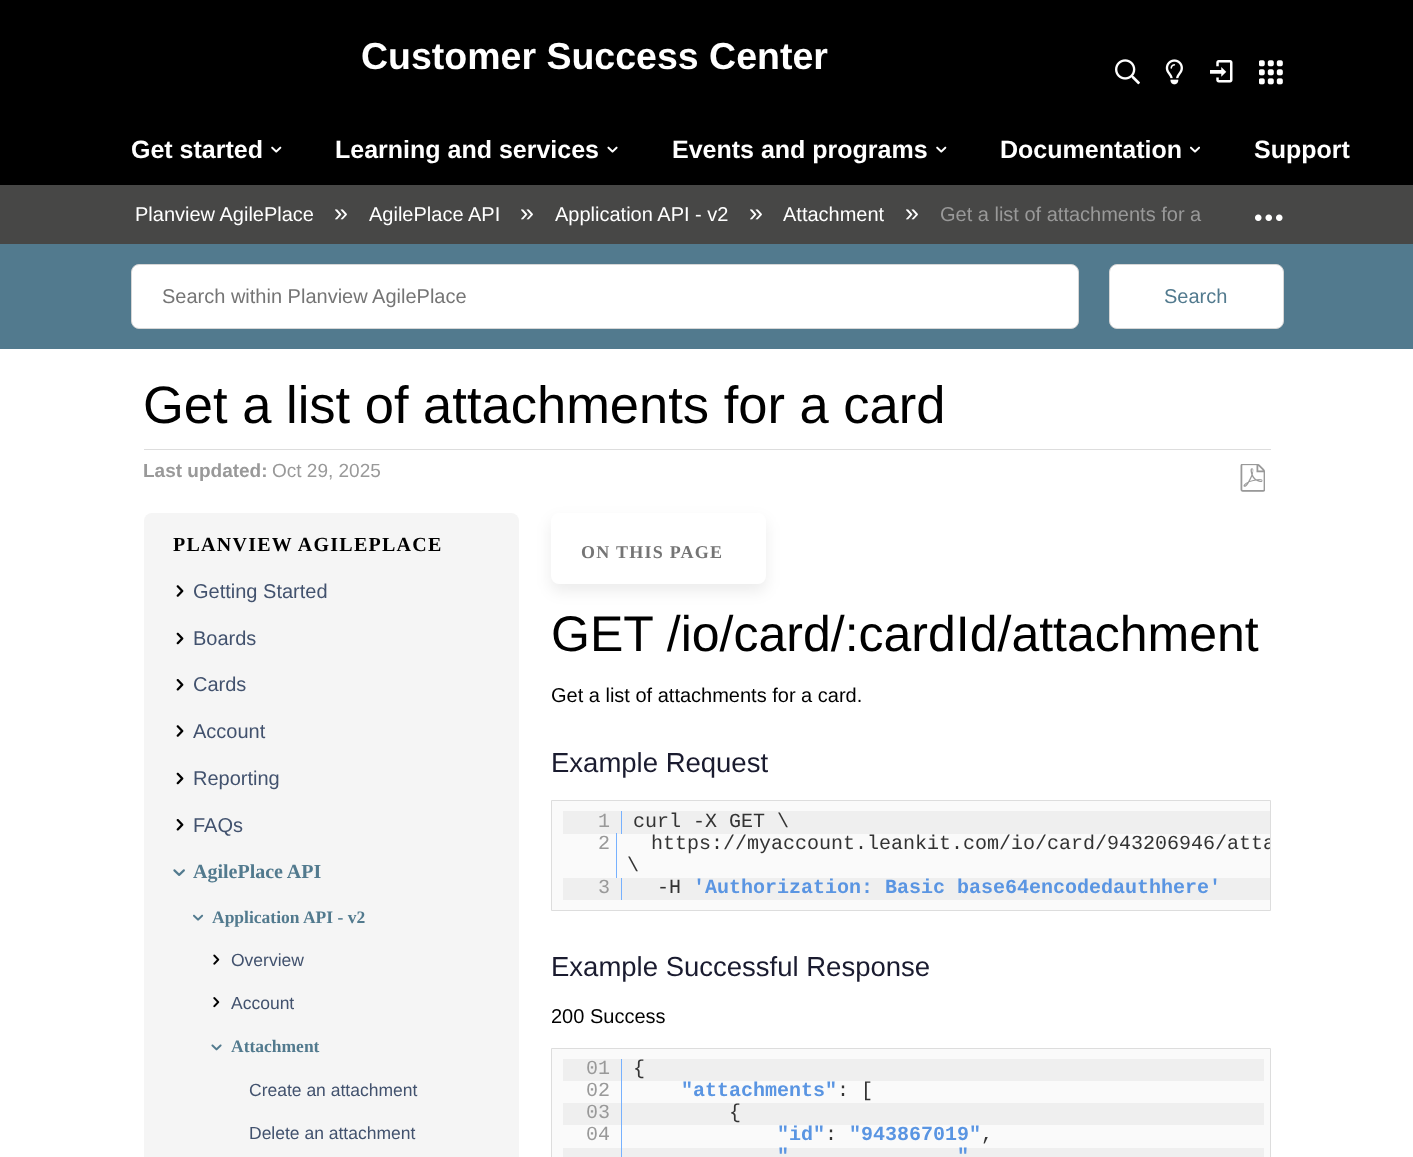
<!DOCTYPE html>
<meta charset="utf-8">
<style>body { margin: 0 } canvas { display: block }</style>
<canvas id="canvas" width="1413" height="1157"></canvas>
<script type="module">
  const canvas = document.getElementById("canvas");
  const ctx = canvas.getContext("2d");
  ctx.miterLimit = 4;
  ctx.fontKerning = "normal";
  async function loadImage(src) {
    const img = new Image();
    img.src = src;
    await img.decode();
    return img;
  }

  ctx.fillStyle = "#ffffff";
  ctx.fillRect(0, 0, 1413, 1157);
  ctx.fillStyle = "#000000";
  ctx.fillRect(0, 0, 1413, 185);
  ctx.font = "bold 37.5px Liberation Sans";
  ctx.fillStyle = "#ffffff";
  ctx.fillText("Customer Success Center", 361, 69);
  ctx.drawImage(await loadImage("img1.png"), 1115, 59, 25, 26);
  ctx.drawImage(await loadImage("img2.png"), 1165, 59, 18, 26);
  ctx.drawImage(await loadImage("img3.png"), 1210, 60, 23, 23);
  ctx.drawImage(await loadImage("img4.png"), 1259, 60, 24, 25);
  ctx.font = "bold 25px Liberation Sans";
  ctx.fillText("Get started", 131, 158);
  ctx.drawImage(await loadImage("img5.png"), 271, 146, 11, 7);
  ctx.fillText("Learning and services", 335, 158);
  ctx.drawImage(await loadImage("img6.png"), 607, 146, 11, 7);
  ctx.fillText("Events and programs", 672, 158);
  ctx.drawImage(await loadImage("img5.png"), 936, 146, 11, 7);
  ctx.fillText("Documentation", 1000, 158);
  ctx.drawImage(await loadImage("img7.png"), 1190, 146, 10, 7);
  ctx.fillText("Support", 1254, 158);
  ctx.fillStyle = "#474746";
  ctx.fillRect(0, 185, 1413, 59);
  ctx.font = "20px Liberation Sans";
  ctx.fillStyle = "#ffffff";
  ctx.fillText("Planview AgilePlace", 135, 221);
  ctx.font = "25px Liberation Sans";
  ctx.fillText("»", 334, 221);
  ctx.font = "20px Liberation Sans";
  ctx.fillText("AgilePlace API", 369, 221);
  ctx.font = "25px Liberation Sans";
  ctx.fillText("»", 520, 221);
  ctx.font = "20px Liberation Sans";
  ctx.fillText("Application API - v2", 555, 221);
  ctx.font = "25px Liberation Sans";
  ctx.fillText("»", 749, 221);
  ctx.font = "20px Liberation Sans";
  ctx.fillText("Attachment", 783, 221);
  ctx.font = "25px Liberation Sans";
  ctx.fillText("»", 905, 221);
  ctx.font = "20px Liberation Sans";
  ctx.fillStyle = "#999999";
  ctx.fillText("Get a list of attachments for a", 940, 221);
  ctx.drawImage(await loadImage("img8.png"), 1255, 214, 28, 7);
  ctx.fillStyle = "#527a8e";
  ctx.fillRect(0, 244, 1413, 105);
  ctx.fillStyle = "#ffffff";
  ctx.beginPath();
  ctx.roundRect(131.5, 264.5, 947, 64, 7.5);
  ctx.fill();
  ctx.strokeStyle = "#d6d6d6";
  ctx.stroke();
  ctx.fillStyle = "#757575";
  ctx.fillText("Search within Planview AgilePlace", 162, 303);
  ctx.fillStyle = "#ffffff";
  ctx.beginPath();
  ctx.roundRect(1109.5, 264.5, 174, 64, 7.5);
  ctx.fill();
  ctx.stroke();
  ctx.fillStyle = "#527a8e";
  ctx.fillText("Search", 1164, 303);
  ctx.fillStyle = "#dddddd";
  ctx.fillRect(144, 449, 1127, 1);
  ctx.font = "52.5px Liberation Sans";
  ctx.fillStyle = "#000000";
  ctx.fillText("Get a list of attachments for a card", 143, 423);
  ctx.font = "bold 19px Liberation Sans";
  ctx.fillStyle = "#999999";
  ctx.fillText("Last updated:", 143, 477);
  ctx.font = "19px Liberation Sans";
  ctx.fillText("Oct 29, 2025", 272, 477);
  ctx.drawImage(await loadImage("img9.png"), 1240, 464, 25, 28);
  ctx.fillStyle = "#f5f5f5";
  ctx.beginPath();
  ctx.roundRect(144, 513, 375, 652, 8);
  ctx.fill();
  ctx.letterSpacing = "1.25px";
  ctx.font = "bold 20px Liberation Serif";
  ctx.fillStyle = "#000000";
  ctx.fillText("PLANVIEW AGILEPLACE", 173, 551);
  ctx.drawImage(await loadImage("img10.png"), 176, 585, 8, 12);
  ctx.letterSpacing = "0px";
  ctx.font = "20px Liberation Sans";
  ctx.fillStyle = "#42526e";
  ctx.fillText("Getting Started", 193, 598);
  ctx.drawImage(await loadImage("img11.png"), 176, 632, 8, 13);
  ctx.fillText("Boards", 193, 645);
  ctx.drawImage(await loadImage("img12.png"), 176, 679, 8, 12);
  ctx.fillText("Cards", 193, 691);
  ctx.drawImage(await loadImage("img10.png"), 176, 725, 8, 12);
  ctx.fillText("Account", 193, 738);
  ctx.drawImage(await loadImage("img11.png"), 176, 772, 8, 13);
  ctx.fillText("Reporting", 193, 785);
  ctx.drawImage(await loadImage("img12.png"), 176, 819, 8, 12);
  ctx.fillText("FAQs", 193, 832);
  ctx.drawImage(await loadImage("img13.png"), 173, 869, 12, 7);
  ctx.font = "bold 20px Liberation Serif";
  ctx.fillStyle = "#527a8e";
  ctx.fillText("AgilePlace API", 193, 878);
  ctx.drawImage(await loadImage("img14.png"), 193, 914, 11, 7);
  ctx.font = "bold 17.5px Liberation Serif";
  ctx.fillText("Application API - v2", 212, 923);
  ctx.drawImage(await loadImage("img15.png"), 213, 954, 7, 11);
  ctx.font = "17.5px Liberation Sans";
  ctx.fillStyle = "#42526e";
  ctx.fillText("Overview", 231, 966);
  ctx.drawImage(await loadImage("img16.png"), 213, 997, 7, 11);
  ctx.fillText("Account", 231, 1009);
  ctx.drawImage(await loadImage("img17.png"), 211, 1044, 11, 7);
  ctx.font = "bold 17.5px Liberation Serif";
  ctx.fillStyle = "#527a8e";
  ctx.fillText("Attachment", 231, 1052);
  ctx.font = "17.5px Liberation Sans";
  ctx.fillStyle = "#42526e";
  ctx.fillText("Create an attachment", 249, 1096);
  ctx.fillText("Delete an attachment", 249, 1139);
  ctx.fillStyle = "rgba(0, 0, 0, 0.08)";
  ctx.filter = "blur(7.5px)";
  ctx.beginPath();
  ctx.roundRect(551, 520, 215, 71, 8);
  ctx.fill();
  ctx.filter = "none";
  ctx.fillStyle = "#ffffff";
  ctx.beginPath();
  ctx.roundRect(551, 513, 215, 71, 8);
  ctx.fill();
  ctx.letterSpacing = "1.25px";
  ctx.font = "bold 18px Liberation Serif";
  ctx.fillStyle = "#757575";
  ctx.fillText("ON THIS PAGE", 581, 558);
  ctx.letterSpacing = "0px";
  ctx.font = "50px Liberation Sans";
  ctx.fillStyle = "#000000";
  ctx.fillText("GET /io/card/:cardId/attachment", 551, 651);
  ctx.font = "20px Liberation Sans";
  ctx.fillText("Get a list of attachments for a card.", 551, 702);
  ctx.font = "27.5px Liberation Sans";
  ctx.fillStyle = "#1a1b2f";
  ctx.fillText("Example Request", 551, 772);
  ctx.fillStyle = "#fafafa";
  ctx.beginPath();
  ctx.rect(551.5, 800.5, 719, 110);
  ctx.fill();
  ctx.strokeStyle = "#dddddd";
  ctx.stroke();
  ctx.fillStyle = "#efefef";
  ctx.fillRect(563, 811, 707, 23);
  ctx.font = "20px Liberation Mono";
  ctx.fillStyle = "#999999";
  ctx.fillText("1", 598, 827);
  ctx.fillStyle = "#77b1fe";
  ctx.fillRect(621, 811, 1, 23);
  ctx.fillStyle = "#333333";
  ctx.fillText("curl -X GET \\", 633, 827);
  ctx.fillStyle = "#999999";
  ctx.fillText("2", 598, 849);
  ctx.fillStyle = "#77b1fe";
  ctx.fillRect(616, 833, 1, 46);
  ctx.save();
  ctx.beginPath();
  ctx.rect(553, 801, 717, 109);
  ctx.clip();
  ctx.fillStyle = "#333333";
  ctx.fillText("https://myaccount.leankit.com/io/card/943206946/atta", 651, 849);
  ctx.restore();
  ctx.fillStyle = "#333333";
  ctx.fillText("\\", 627, 871);
  ctx.fillStyle = "#efefef";
  ctx.fillRect(563, 878, 707, 22);
  ctx.fillStyle = "#999999";
  ctx.fillText("3", 598, 893);
  ctx.fillStyle = "#77b1fe";
  ctx.fillRect(621, 878, 1, 22);
  ctx.fillStyle = "#333333";
  ctx.fillText("-H", 657, 893);
  ctx.font = "bold 20px Liberation Mono";
  ctx.fillStyle = "#5a95e2";
  ctx.fillText("'Authorization: Basic base64encodedauthhere'", 693, 893);
  ctx.font = "27.5px Liberation Sans";
  ctx.fillStyle = "#1a1b2f";
  ctx.fillText("Example Successful Response", 551, 976);
  ctx.font = "20px Liberation Sans";
  ctx.fillStyle = "#000000";
  ctx.fillText("200 Success", 551, 1023);
  ctx.fillStyle = "#fafafa";
  ctx.beginPath();
  ctx.rect(551.5, 1048.5, 719, 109);
  ctx.fill();
  ctx.stroke();
  ctx.fillStyle = "#efefef";
  ctx.fillRect(563, 1059, 701, 22);
  ctx.font = "20px Liberation Mono";
  ctx.fillStyle = "#999999";
  ctx.fillText("01", 586, 1074);
  ctx.fillStyle = "#77b1fe";
  ctx.fillRect(621, 1059, 1, 45);
  ctx.fillStyle = "#333333";
  ctx.fillText("{", 633, 1074);
  ctx.fillStyle = "#999999";
  ctx.fillText("02", 586, 1096);
  ctx.font = "bold 20px Liberation Mono";
  ctx.fillStyle = "#5a95e2";
  ctx.fillText("\"attachments\"", 681, 1096);
  ctx.font = "20px Liberation Mono";
  ctx.fillStyle = "#333333";
  ctx.fillText(": [", 837, 1096);
  ctx.fillStyle = "#efefef";
  ctx.fillRect(563, 1103, 701, 22);
  ctx.fillStyle = "#999999";
  ctx.fillText("03", 586, 1118);
  ctx.fillStyle = "#77b1fe";
  ctx.fillRect(621, 1103, 1, 45);
  ctx.fillStyle = "#333333";
  ctx.fillText("{", 729, 1118);
  ctx.fillStyle = "#999999";
  ctx.fillText("04", 586, 1140);
  ctx.font = "bold 20px Liberation Mono";
  ctx.fillStyle = "#5a95e2";
  ctx.fillText("\"id\"", 777, 1140);
  ctx.font = "20px Liberation Mono";
  ctx.fillStyle = "#333333";
  ctx.fillText(":", 825, 1140);
  ctx.font = "bold 20px Liberation Mono";
  ctx.fillStyle = "#5a95e2";
  ctx.fillText("\"943867019\"", 849, 1140);
  ctx.font = "20px Liberation Mono";
  ctx.fillStyle = "#333333";
  ctx.fillText(",", 981, 1140);
  ctx.fillStyle = "#efefef";
  ctx.fillRect(563, 1148, 701, 9);
  ctx.fillStyle = "#77b1fe";
  ctx.fillRect(621, 1146, 1, 11);
  ctx.font = "bold 20px Liberation Mono";
  ctx.fillStyle = "#5a95e2";
  ctx.fillText("\"", 777, 1162);
  ctx.fillText("\"", 957, 1162);
</script>
